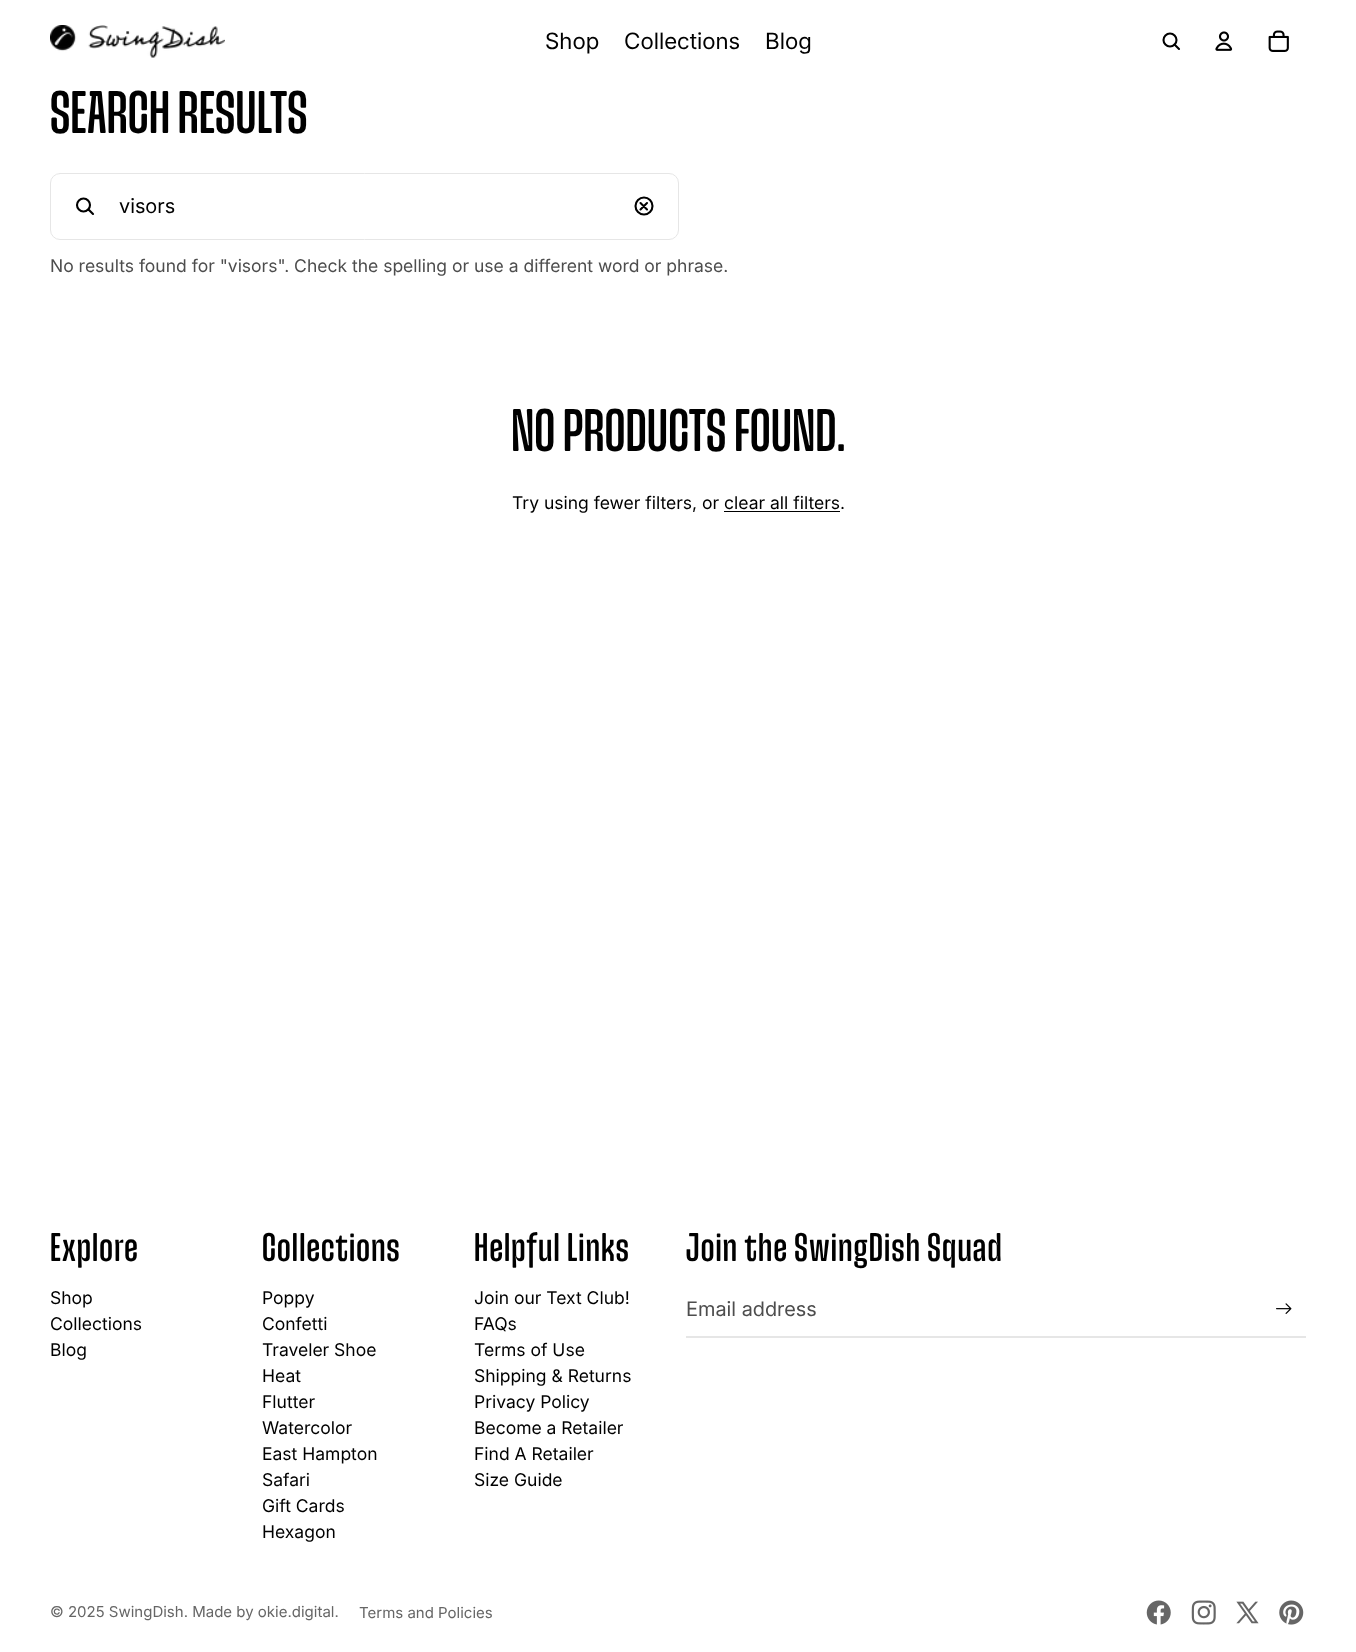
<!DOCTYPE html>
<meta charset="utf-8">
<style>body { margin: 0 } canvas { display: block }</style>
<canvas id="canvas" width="1356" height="1652"></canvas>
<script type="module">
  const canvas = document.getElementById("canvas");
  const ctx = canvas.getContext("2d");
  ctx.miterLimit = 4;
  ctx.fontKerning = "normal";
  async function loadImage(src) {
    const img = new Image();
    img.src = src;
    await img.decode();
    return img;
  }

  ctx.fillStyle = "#ffffff";
  ctx.fillRect(0, 0, 1356, 1652);
  ctx.drawImage(await loadImage("img1.png"), 50, 25, 175, 33);
  ctx.font = "22.5px Inter";
  ctx.fillStyle = "#000000";
  ctx.fillText("Shop", 545, 49);
  ctx.fillText("Collections", 624, 49);
  ctx.fillText("Blog", 765, 49);
  ctx.beginPath();
  ctx.arc(1170, 40, 6.5, 0, Math.PI * 2);
  ctx.strokeStyle = "#000000";
  ctx.lineWidth = 2.1;
  ctx.stroke();
  ctx.beginPath();
  ctx.moveTo(1174.5, 44.5);
  ctx.lineTo(1179, 49);
  ctx.lineCap = "round";
  ctx.lineJoin = "round";
  ctx.stroke();
  ctx.drawImage(await loadImage("img2.png"), 1215, 31, 18, 20);
  ctx.drawImage(await loadImage("img3.png"), 1268, 30, 21, 22);
  ctx.font = "60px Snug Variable";
  ctx.fillText("SEARCH RESULTS", 50, 133);
  ctx.beginPath();
  ctx.roundRect(50.5, 173.5, 628, 66, 9.5);
  ctx.strokeStyle = "#e6e6e6";
  ctx.lineWidth = 1;
  ctx.lineJoin = "miter";
  ctx.stroke();
  ctx.beginPath();
  ctx.arc(83.5, 205, 6.5, 0, Math.PI * 2);
  ctx.strokeStyle = "#000000";
  ctx.lineWidth = 2.1;
  ctx.stroke();
  ctx.beginPath();
  ctx.moveTo(88.5, 209.5);
  ctx.lineTo(93, 214);
  ctx.lineJoin = "round";
  ctx.stroke();
  ctx.font = "20px 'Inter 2'";
  ctx.fillText("visors", 119, 213);
  ctx.beginPath();
  ctx.arc(644, 206, 8.5, 0, Math.PI * 2);
  ctx.stroke();
  ctx.beginPath();
  ctx.moveTo(647, 203);
  ctx.lineTo(640.5, 209.5);
  ctx.moveTo(647, 209.5);
  ctx.lineTo(640.5, 203);
  ctx.stroke();
  ctx.font = "17.5px 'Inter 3'";
  ctx.fillStyle = "#4d4d4d";
  ctx.fillText("No results found for \"visors\". Check the spelling or use a different word or phrase.", 50, 272);
  ctx.font = "60px Snug Variable";
  ctx.fillStyle = "#000000";
  ctx.fillText("NO PRODUCTS FOUND.", 511, 451);
  ctx.font = "17.5px 'Inter 3'";
  ctx.fillText("Try using fewer filters, or clear all filters.", 512, 509);
  ctx.fillRect(724, 511, 116, 1);
  ctx.letterSpacing = "1.2px";
  ctx.font = "40px Snug Variable";
  ctx.fillText("Explore", 50, 1261);
  ctx.letterSpacing = "0px";
  ctx.font = "17.5px 'Inter 3'";
  ctx.fillText("Shop", 50, 1304);
  ctx.fillText("Collections", 50, 1330);
  ctx.fillText("Blog", 50, 1356);
  ctx.letterSpacing = "1.2px";
  ctx.font = "40px Snug Variable";
  ctx.fillText("Collections", 262, 1261);
  ctx.letterSpacing = "0px";
  ctx.font = "17.5px 'Inter 3'";
  ctx.fillText("Poppy", 262, 1304);
  ctx.fillText("Confetti", 262, 1330);
  ctx.fillText("Traveler Shoe", 262, 1356);
  ctx.fillText("Heat", 262, 1382);
  ctx.fillText("Flutter", 262, 1408);
  ctx.fillText("Watercolor", 262, 1434);
  ctx.fillText("East Hampton", 262, 1460);
  ctx.fillText("Safari", 262, 1486);
  ctx.fillText("Gift Cards", 262, 1512);
  ctx.fillText("Hexagon", 262, 1538);
  ctx.letterSpacing = "1.2px";
  ctx.font = "40px Snug Variable";
  ctx.fillText("Helpful Links", 474, 1261);
  ctx.letterSpacing = "0px";
  ctx.font = "17.5px 'Inter 3'";
  ctx.fillText("Join our Text Club!", 474, 1304);
  ctx.fillText("FAQs", 474, 1330);
  ctx.fillText("Terms of Use", 474, 1356);
  ctx.fillText("Shipping & Returns", 474, 1382);
  ctx.fillText("Privacy Policy", 474, 1408);
  ctx.fillText("Become a Retailer", 474, 1434);
  ctx.fillText("Find A Retailer", 474, 1460);
  ctx.fillText("Size Guide", 474, 1486);
  ctx.letterSpacing = "1.2px";
  ctx.font = "40px Snug Variable";
  ctx.fillText("Join the SwingDish Squad", 686, 1261);
  ctx.fillStyle = "#e6e6e6";
  ctx.beginPath();
  ctx.moveTo(686, 1284);
  ctx.lineTo(686, 1338);
  ctx.lineTo(1306, 1338);
  ctx.lineTo(1306, 1336);
  ctx.lineTo(686, 1336);
  ctx.closePath();
  ctx.fill();
  ctx.letterSpacing = "0px";
  ctx.font = "20px 'Inter 2'";
  ctx.fillStyle = "#4d4d4d";
  ctx.fillText("Email address", 686, 1316);
  ctx.drawImage(await loadImage("img4.png"), 1276, 1303, 16, 11);
  ctx.font = "15px 'Inter 3'";
  ctx.fillStyle = "#666666";
  ctx.fillText("© 2025 SwingDish. Made by okie.digital.", 50, 1617);
  ctx.fillText("Terms and Policies", 359, 1618);
  ctx.drawImage(await loadImage("img5.png"), 1146, 1600, 25, 25);
  ctx.drawImage(await loadImage("img6.png"), 1191, 1600, 25, 25);
  ctx.drawImage(await loadImage("img7.png"), 1236, 1601, 23, 23);
  ctx.drawImage(await loadImage("img8.png"), 1279, 1600, 25, 25);
</script>
